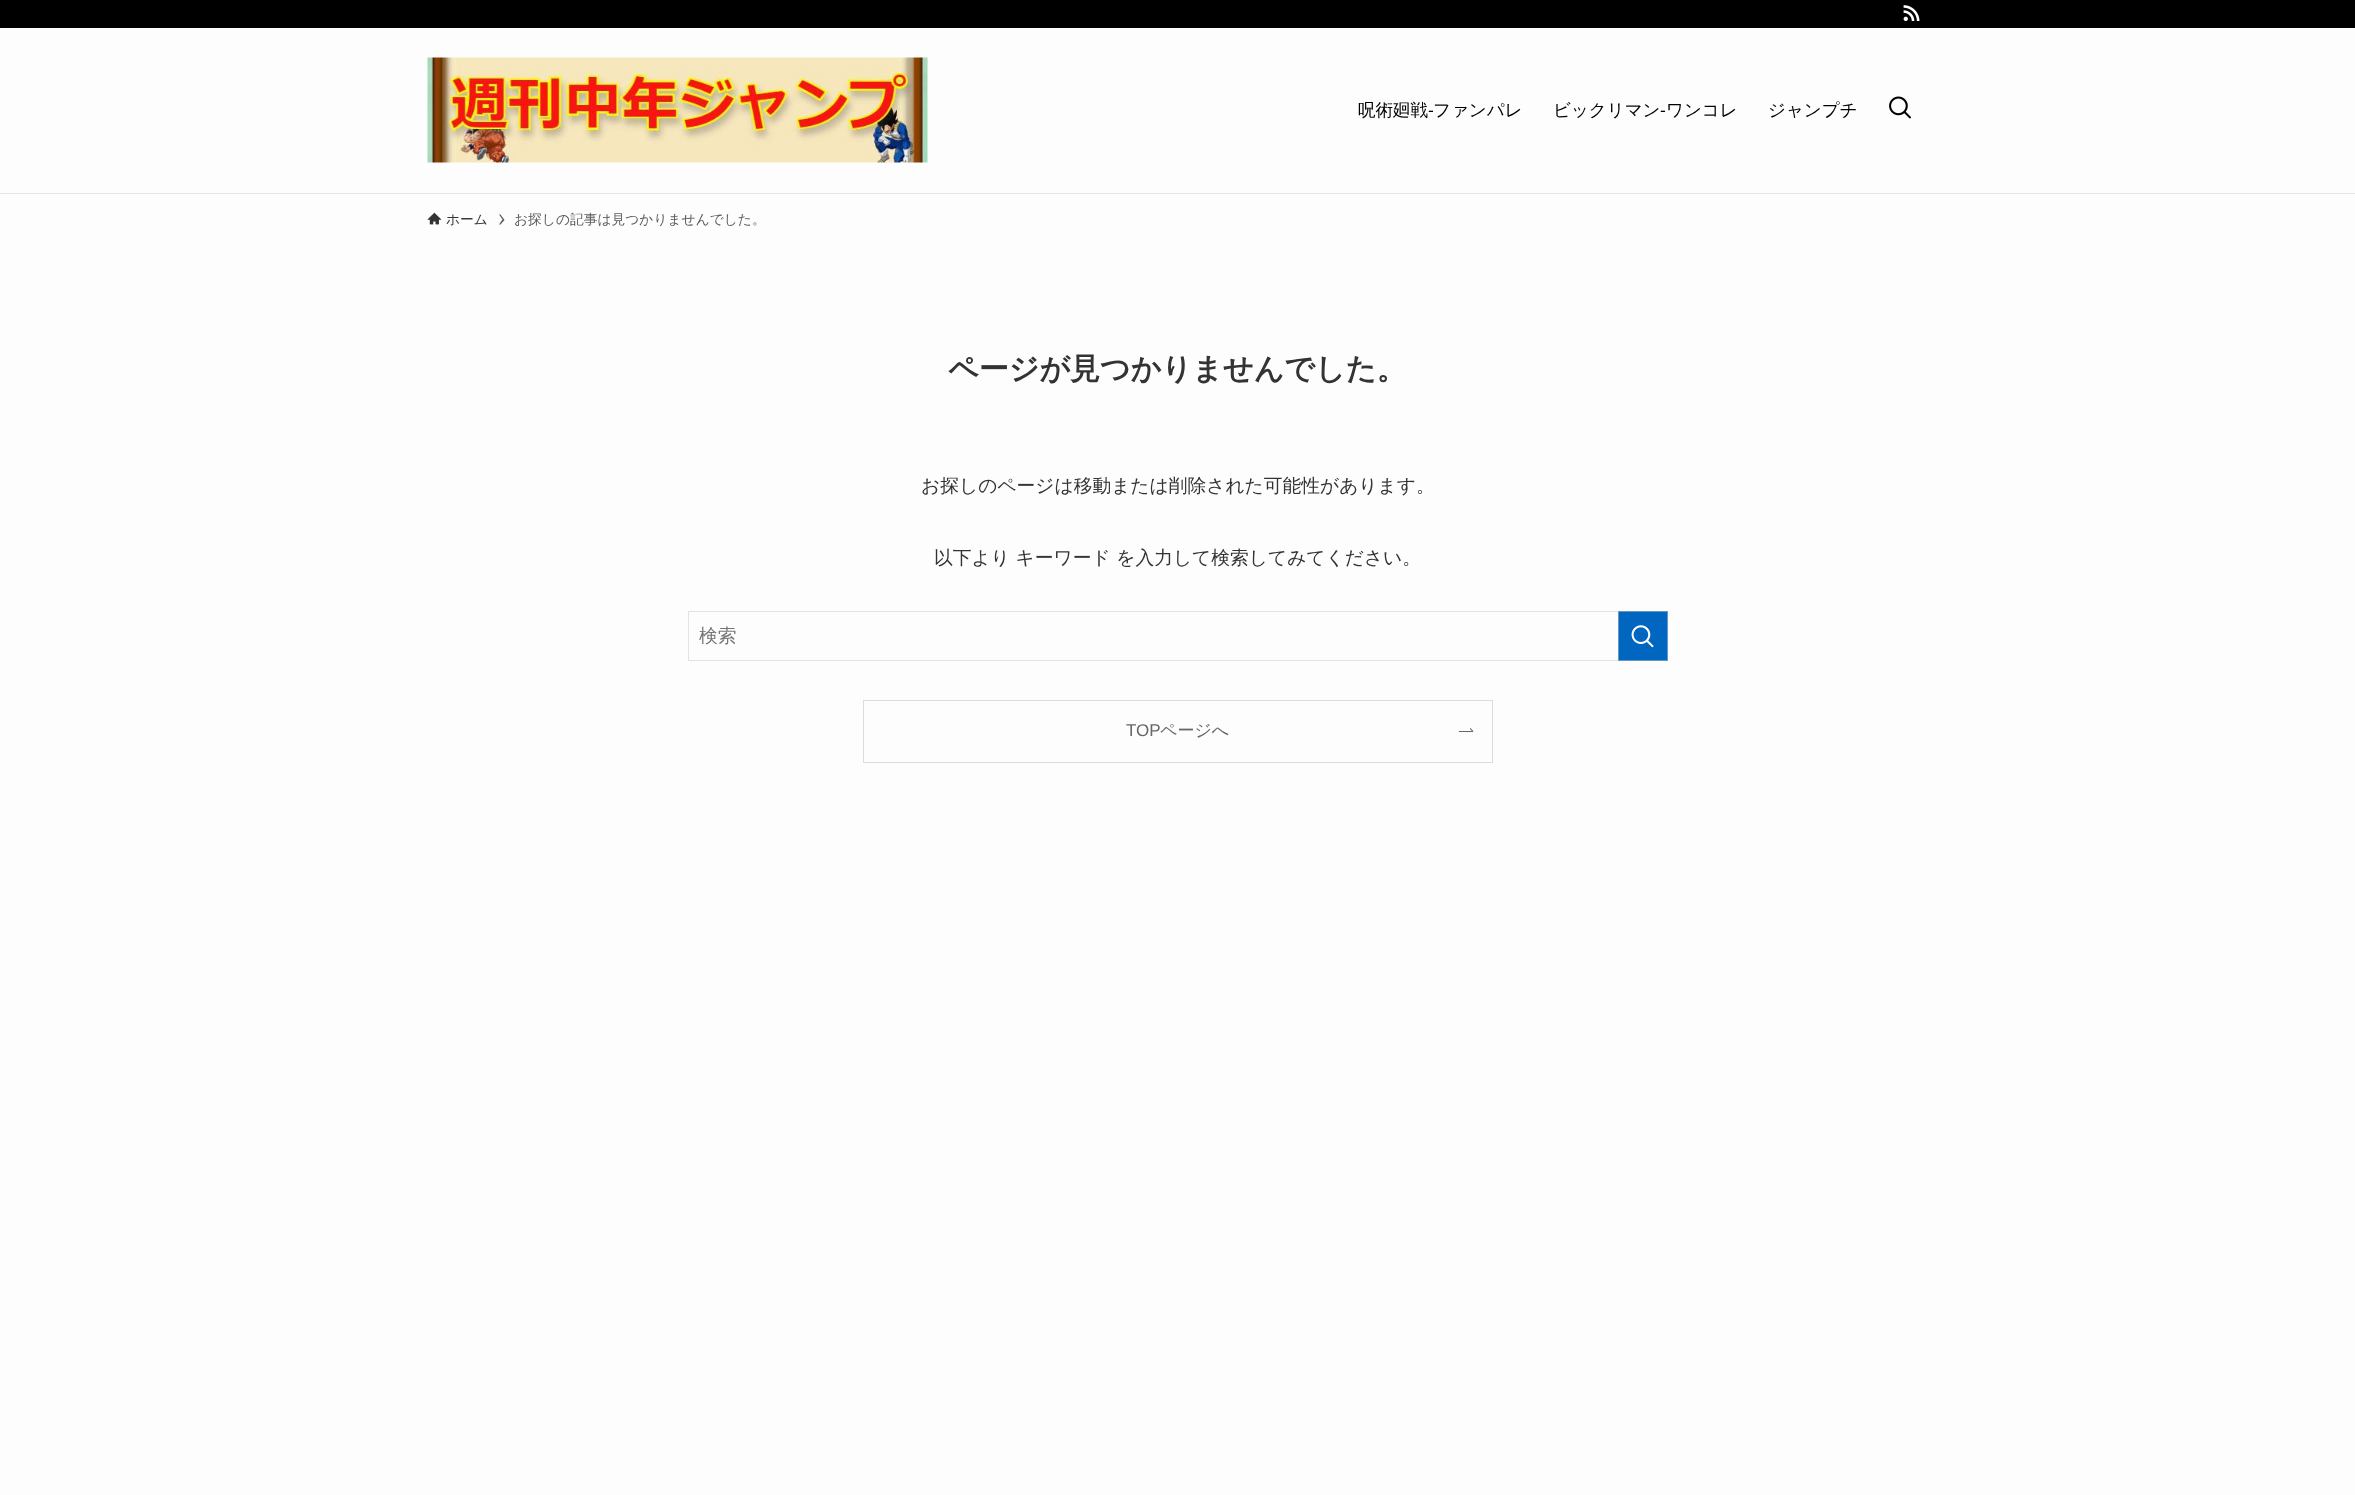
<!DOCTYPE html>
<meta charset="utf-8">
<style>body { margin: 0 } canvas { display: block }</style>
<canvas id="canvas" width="2355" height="1495"></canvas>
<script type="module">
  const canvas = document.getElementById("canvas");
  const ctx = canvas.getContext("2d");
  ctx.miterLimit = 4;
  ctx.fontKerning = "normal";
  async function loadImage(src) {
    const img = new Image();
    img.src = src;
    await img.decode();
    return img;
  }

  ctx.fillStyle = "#fdfdfd";
  ctx.fillRect(0, 0, 2355, 1495);
  ctx.fillStyle = "#e6e6e6";
  ctx.fillRect(0, 193, 2355, 1);
  ctx.fillStyle = "#000000";
  ctx.fillRect(0, 0, 2355, 28);
  ctx.drawImage(await loadImage("img1.png"), 1903, 5, 17, 16);
  ctx.drawImage(await loadImage("img2.png"), 427, 57, 501, 106);
  ctx.font = "500 17.5px WenQuanYi Zen Hei";
  ctx.fillText("呪術廻戦", 1358, 116);
  ctx.font = "17.5px Liberation Sans";
  ctx.fillText("-", 1428, 116);
  ctx.font = "500 17.5px WenQuanYi Zen Hei";
  ctx.fillText("ファンパレ", 1433, 116);
  ctx.fillText("ビックリマン", 1553, 116);
  ctx.font = "17.5px Liberation Sans";
  ctx.fillText("-", 1660, 116);
  ctx.font = "500 17.5px WenQuanYi Zen Hei";
  ctx.fillText("ワンコレ", 1666, 116);
  ctx.fillText("ジャンプチ", 1768, 116);
  ctx.drawImage(await loadImage("img3.png"), 1889, 96, 22, 23);
  ctx.drawImage(await loadImage("img4.png"), 427, 212, 15, 13);
  ctx.font = "500 13.75px WenQuanYi Zen Hei";
  ctx.fillStyle = "#333333";
  ctx.fillText("ホーム", 446, 224);
  ctx.fillStyle = "#5b5b5b";
  ctx.beginPath();
  ctx.moveTo(500.5, 214.5);
  ctx.lineTo(499, 214.5);
  ctx.lineTo(502.5, 219.5);
  ctx.lineTo(499, 224.5);
  ctx.lineTo(500.5, 224.5);
  ctx.lineTo(504.5, 220);
  ctx.closePath();
  ctx.fill();
  ctx.fillText("お探しの記事は見つかりませんでした。", 514, 224);
  ctx.font = "bold 30px WenQuanYi Zen Hei";
  ctx.fillStyle = "#333333";
  ctx.fillText("ページが見つかりませんでした。", 948, 379);
  ctx.font = "500 18.75px WenQuanYi Zen Hei";
  ctx.fillText("お探しのページは移動または削除された可能性があります。", 921, 492);
  ctx.fillText("以下より キーワード を入力して検索してみてください。", 934, 564);
  ctx.strokeStyle = "#e3e3e3";
  ctx.strokeRect(688.5, 611.5, 979, 49);
  ctx.fillStyle = "#757575";
  ctx.fillText("検索", 699, 642);
  ctx.fillStyle = "#0066bf";
  ctx.beginPath();
  ctx.rect(1618.5, 611.5, 49, 49);
  ctx.fill();
  ctx.strokeStyle = "#6497c3";
  ctx.stroke();
  ctx.drawImage(await loadImage("img5.png"), 1631, 625, 23, 23);
  ctx.strokeStyle = "#dcdcdc";
  ctx.strokeRect(863.5, 700.5, 629, 62);
  ctx.font = "17px Liberation Sans";
  ctx.fillStyle = "#666666";
  ctx.fillText("TOP", 1126, 736);
  ctx.font = "500 17px WenQuanYi Zen Hei";
  ctx.fillText("ページへ", 1160, 736);
  ctx.drawImage(await loadImage("img6.png"), 1458, 728, 16, 4);
</script>
